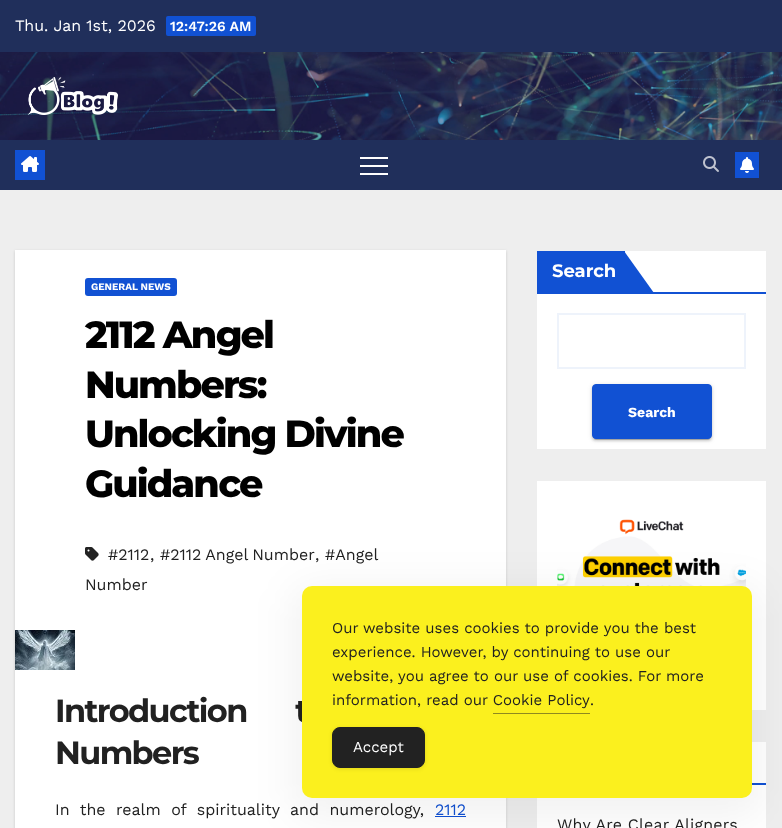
<!DOCTYPE html>
<meta charset="utf-8">
<style>body { margin: 0 } canvas { display: block }</style>
<canvas id="canvas" width="782" height="828"></canvas>
<script type="module">
  const canvas = document.getElementById("canvas");
  const ctx = canvas.getContext("2d");
  ctx.miterLimit = 4;
  ctx.fontKerning = "normal";
  async function loadImage(src) {
    const img = new Image();
    img.src = src;
    await img.decode();
    return img;
  }

  ctx.fillStyle = "#eeeeee";
  ctx.fillRect(0, 0, 782, 828);
  ctx.fillStyle = "#202f5b";
  ctx.fillRect(0, 0, 782, 52);
  ctx.font = "16px Work Sans";
  ctx.fillStyle = "#ffffff";
  ctx.fillText("Thu. Jan 1st, 2026", 15, 31);
  ctx.fillStyle = "#1151d3";
  ctx.beginPath();
  ctx.roundRect(166, 16, 90, 20, 2);
  ctx.fill();
  ctx.font = "600 14px Work Sans";
  ctx.fillStyle = "#ffffff";
  ctx.fillText("12:47:26 AM", 170, 31);
  ctx.drawImage(await loadImage("img1.png"), 0, 52, 782, 88);
  ctx.drawImage(await loadImage("img2.png"), 28, 77, 90, 38);
  ctx.fillStyle = "#202f5b";
  ctx.fillRect(0, 140, 782, 50);
  ctx.fillStyle = "#1151d3";
  ctx.fillRect(15, 150, 30, 30);
  ctx.drawImage(await loadImage("img3.png"), 21, 156, 18, 16);
  ctx.fillStyle = "#ffffff";
  ctx.fillRect(360, 157, 28, 2);
  ctx.fillRect(360, 165, 28, 2);
  ctx.fillRect(360, 173, 28, 2);
  ctx.drawImage(await loadImage("img4.png"), 703, 156, 16, 16);
  ctx.fillStyle = "#1151d3";
  ctx.fillRect(735, 152, 24, 26);
  ctx.drawImage(await loadImage("img5.png"), 740, 157, 14, 16);
  ctx.fillStyle = "rgba(0, 0, 0, 0.15)";
  ctx.filter = "blur(1.5px)";
  ctx.beginPath();
  ctx.rect(15, 251, 491, 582);
  ctx.fill();
  ctx.filter = "none";
  ctx.fillStyle = "#ffffff";
  ctx.fillRect(15, 250, 491, 578);
  ctx.fillStyle = "#1151d3";
  ctx.beginPath();
  ctx.roundRect(85, 278, 92, 18, 3);
  ctx.fill();
  ctx.font = "bold 10px Work Sans";
  ctx.fillStyle = "#ffffff";
  ctx.fillText("GENERAL NEWS", 91, 290);
  ctx.letterSpacing = "-1.9px";
  ctx.font = "800 38px Montserrat";
  ctx.fillStyle = "#000000";
  ctx.fillText("2112 Angel", 85, 348);
  ctx.fillText("Numbers:", 85, 398);
  ctx.fillText("Unlocking Divine", 85, 447);
  ctx.fillText("Guidance", 85, 497);
  ctx.drawImage(await loadImage("img6.png"), 85, 547, 14, 14);
  ctx.letterSpacing = "0px";
  ctx.font = "16px Work Sans";
  ctx.fillStyle = "#212121";
  ctx.fillText("#2112", 108, 560);
  ctx.wordSpacing = "-1px";
  ctx.fillText("#2112 Angel Number", 160, 560);
  ctx.wordSpacing = "0px";
  ctx.fillText("#Angel", 325, 560);
  ctx.fillText(",", 150, 560);
  ctx.fillText(",", 315, 560);
  ctx.fillText("Number", 85, 590);
  ctx.drawImage(await loadImage("img7.png"), 15, 630, 60, 40);
  ctx.letterSpacing = "-1.6px";
  ctx.wordSpacing = "41px";
  ctx.font = "bold 32px Montserrat";
  ctx.fillText("Introduction t", 55, 722);
  ctx.wordSpacing = "0px";
  ctx.fillText("Numbers", 55, 764);
  ctx.letterSpacing = "0px";
  ctx.wordSpacing = "5px";
  ctx.font = "16px Work Sans";
  ctx.fillText("In the realm of spirituality and numerology,", 55, 815);
  ctx.wordSpacing = "0px";
  ctx.fillStyle = "#1151d3";
  ctx.fillText("2112", 435, 815);
  ctx.fillRect(435, 816, 31, 1);
  ctx.fillStyle = "#ffffff";
  ctx.fillRect(537, 251, 229, 198);
  ctx.fillStyle = "#1151d3";
  ctx.fillRect(537, 251, 88, 41);
  ctx.font = "bold 18px Montserrat";
  ctx.fillStyle = "#ffffff";
  ctx.fillText("Search", 552, 277);
  ctx.fillStyle = "#1151d3";
  ctx.beginPath();
  ctx.moveTo(624, 293);
  ctx.lineTo(624, 251);
  ctx.lineTo(654, 293);
  ctx.closePath();
  ctx.fill();
  ctx.fillRect(537, 292, 229, 2);
  ctx.strokeStyle = "#eef3fb";
  ctx.lineWidth = 2;
  ctx.strokeRect(558, 314, 187, 54);
  ctx.fillStyle = "rgba(0, 0, 0, 0.12)";
  ctx.filter = "blur(2.5px)";
  ctx.beginPath();
  ctx.roundRect(592, 385, 120, 55, 4);
  ctx.fill();
  ctx.filter = "none";
  ctx.fillStyle = "rgba(0, 0, 0, 0.2)";
  ctx.filter = "blur(0.5px)";
  ctx.beginPath();
  ctx.roundRect(594, 389, 116, 51, 2);
  ctx.fill();
  ctx.filter = "none";
  ctx.fillStyle = "rgba(0, 0, 0, 0.14)";
  ctx.filter = "blur(1px)";
  ctx.beginPath();
  ctx.roundRect(592, 386, 120, 55, 4);
  ctx.fill();
  ctx.filter = "none";
  ctx.fillStyle = "#1151d3";
  ctx.beginPath();
  ctx.roundRect(592.5, 384.5, 119, 54, 3.5);
  ctx.fill();
  ctx.strokeStyle = "#1151d3";
  ctx.lineWidth = 1;
  ctx.stroke();
  ctx.font = "bold 14px Work Sans";
  ctx.fillStyle = "#ffffff";
  ctx.fillText("Search", 628, 417);
  ctx.fillRect(537, 481, 229, 229);
  ctx.drawImage(await loadImage("img8.png"), 557, 519, 189, 68);
  ctx.fillRect(537, 742, 229, 86);
  ctx.fillStyle = "#1151d3";
  ctx.fillRect(752, 783, 14, 2);
  ctx.letterSpacing = "0.2px";
  ctx.font = "16px Work Sans";
  ctx.fillStyle = "#212121";
  ctx.fillText("Why Are Clear Aligners", 557, 830);
  ctx.fillStyle = "rgba(0, 0, 0, 0.05)";
  ctx.filter = "blur(20px)";
  ctx.beginPath();
  ctx.roundRect(292, 586, 470, 232, 20);
  ctx.fill();
  ctx.filter = "none";
  ctx.fillStyle = "#fbf01e";
  ctx.beginPath();
  ctx.roundRect(302, 586, 450, 212, 10);
  ctx.fill();
  ctx.letterSpacing = "0px";
  ctx.font = "15px Work Sans";
  ctx.fillStyle = "#212121";
  ctx.fillText("Our website uses cookies to provide you the best", 332, 633);
  ctx.fillText("experience. However, by continuing to use our", 332, 657);
  ctx.fillText("website, you agree to our use of cookies. For more", 332, 681);
  ctx.fillText("information, read our Cookie Policy", 332, 705);
  ctx.fillText(".", 590, 705);
  ctx.fillStyle = "#8f8920";
  ctx.fillRect(493, 713, 97, 1);
  ctx.fillStyle = "rgba(0, 0, 0, 0.1)";
  ctx.filter = "blur(2px)";
  ctx.beginPath();
  ctx.roundRect(332, 728, 93, 41, 8);
  ctx.fill();
  ctx.filter = "none";
  ctx.fillStyle = "#222222";
  ctx.beginPath();
  ctx.roundRect(332.5, 727.5, 92, 40, 7.5);
  ctx.fill();
  ctx.strokeStyle = "#222222";
  ctx.stroke();
  ctx.fillStyle = "#ffffff";
  ctx.fillText("Accept", 353, 752);
</script>
